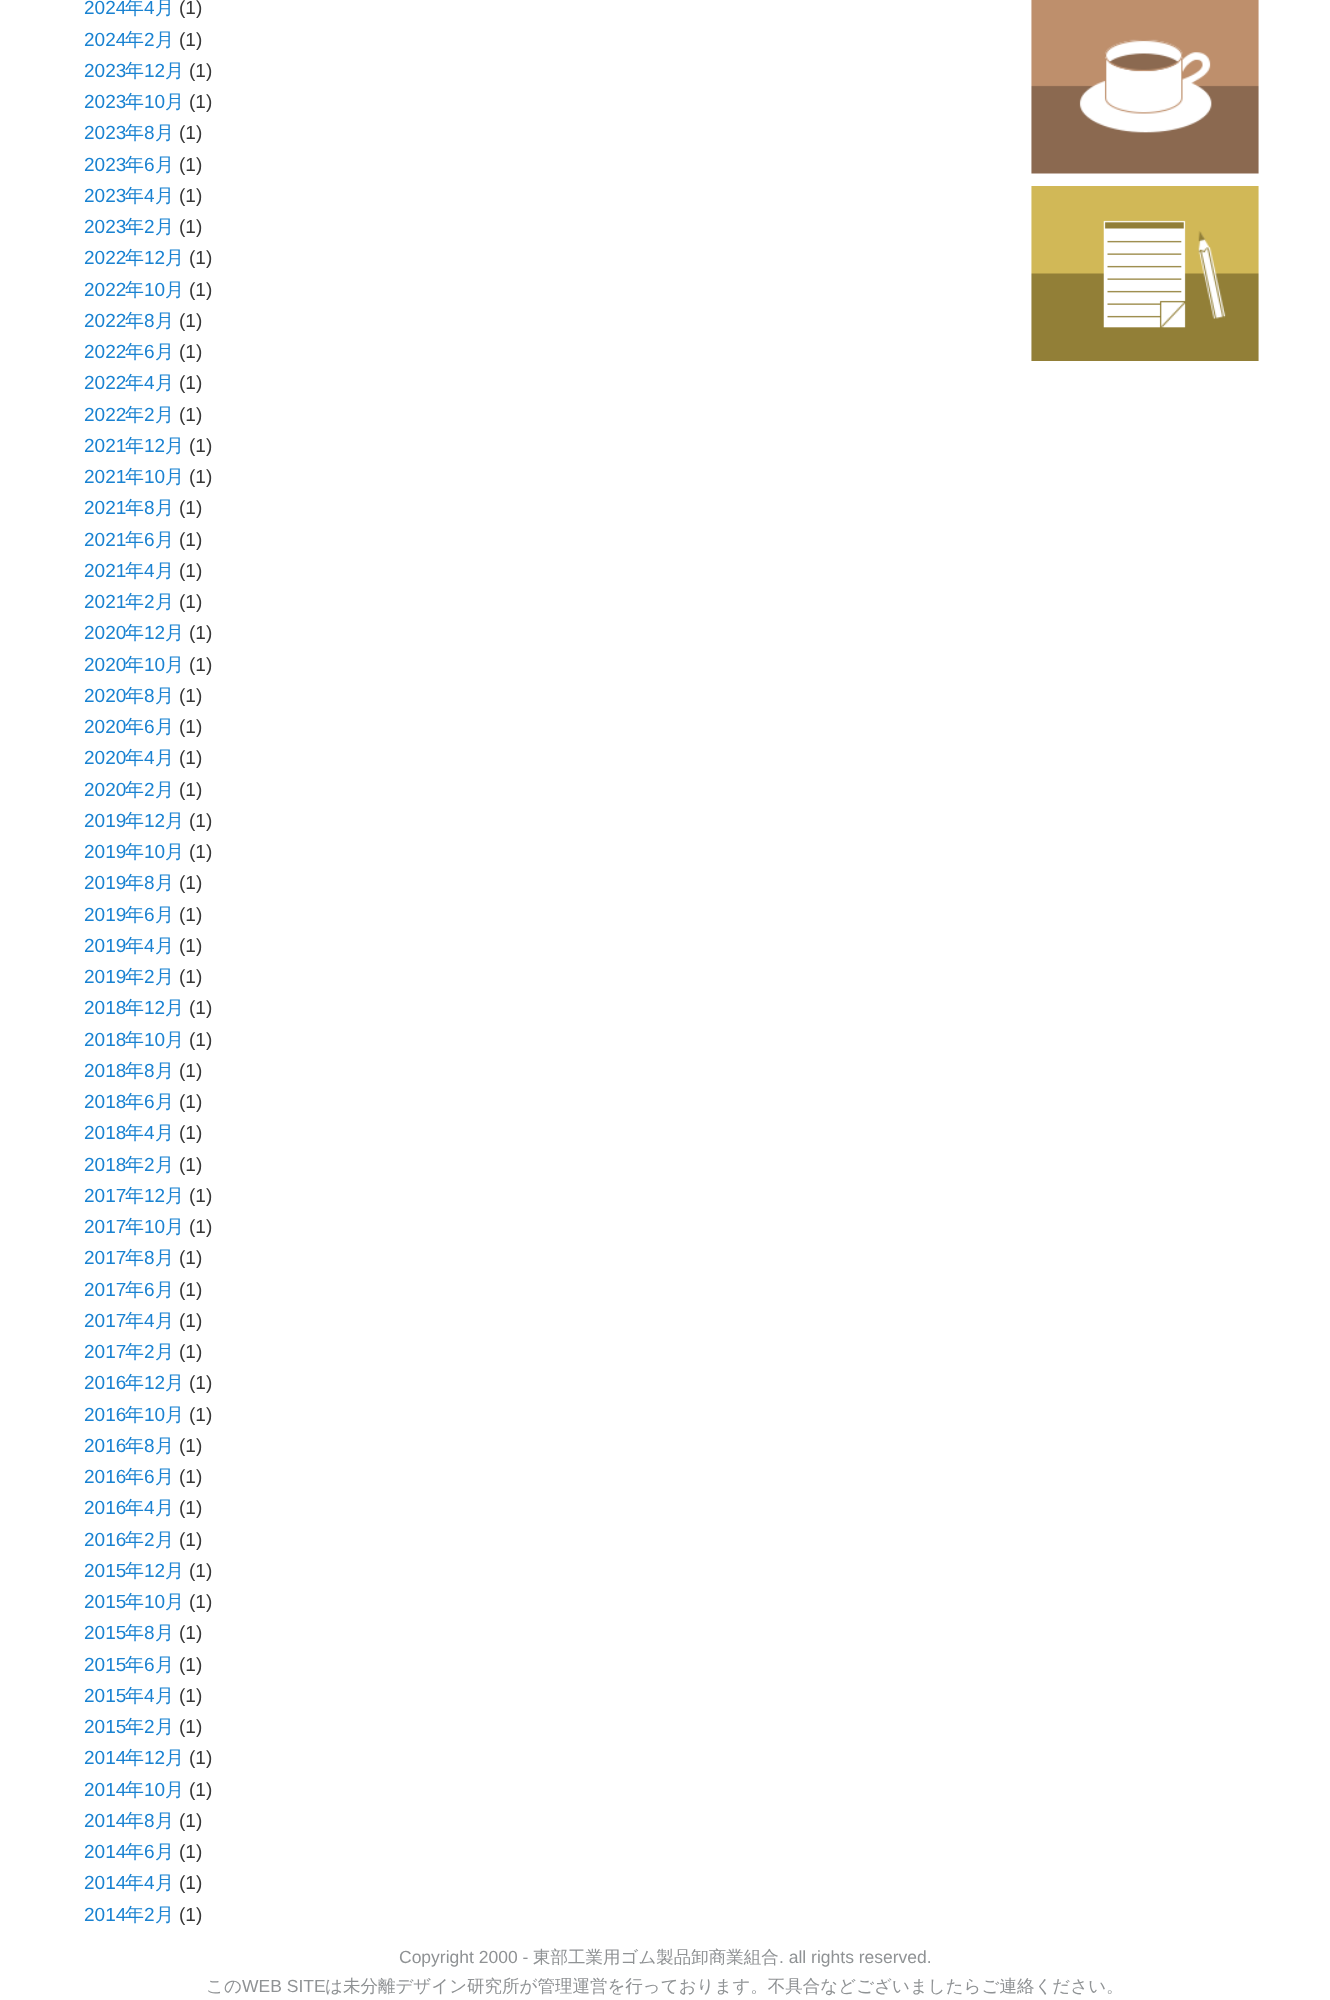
<!DOCTYPE html>
<meta charset="utf-8">
<style>body { margin: 0 } canvas { display: block }</style>
<canvas id="canvas" width="1330" height="2000"></canvas>
<script type="module">
  const canvas = document.getElementById("canvas");
  const ctx = canvas.getContext("2d");
  ctx.miterLimit = 4;
  ctx.fontKerning = "normal";
  async function loadImage(src) {
    const img = new Image();
    img.src = src;
    await img.decode();
    return img;
  }

  ctx.fillStyle = "#ffffff";
  ctx.fillRect(0, 0, 1330, 2000);
  ctx.font = "19px Liberation Sans";
  ctx.fillStyle = "#1982d1";
  ctx.fillText("2024", 84, 14);
  ctx.font = "500 19px WenQuanYi Zen Hei";
  ctx.fillText("年", 125, 14);
  ctx.font = "19px Liberation Sans";
  ctx.fillText("4", 144, 14);
  ctx.font = "500 19px WenQuanYi Zen Hei";
  ctx.fillText("月", 155, 14);
  ctx.font = "19px Liberation Sans";
  ctx.fillStyle = "#373737";
  ctx.fillText("(1)", 179, 14);
  ctx.fillStyle = "#1982d1";
  ctx.fillText("2024", 84, 46);
  ctx.font = "500 19px WenQuanYi Zen Hei";
  ctx.fillText("年", 125, 46);
  ctx.font = "19px Liberation Sans";
  ctx.fillText("2", 144, 46);
  ctx.font = "500 19px WenQuanYi Zen Hei";
  ctx.fillText("月", 155, 46);
  ctx.font = "19px Liberation Sans";
  ctx.fillStyle = "#373737";
  ctx.fillText("(1)", 179, 46);
  ctx.fillStyle = "#1982d1";
  ctx.fillText("2023", 84, 77);
  ctx.font = "500 19px WenQuanYi Zen Hei";
  ctx.fillText("年", 125, 77);
  ctx.font = "19px Liberation Sans";
  ctx.fillText("12", 144, 77);
  ctx.font = "500 19px WenQuanYi Zen Hei";
  ctx.fillText("月", 165, 77);
  ctx.font = "19px Liberation Sans";
  ctx.fillStyle = "#373737";
  ctx.fillText("(1)", 189, 77);
  ctx.fillStyle = "#1982d1";
  ctx.fillText("2023", 84, 108);
  ctx.font = "500 19px WenQuanYi Zen Hei";
  ctx.fillText("年", 125, 108);
  ctx.font = "19px Liberation Sans";
  ctx.fillText("10", 144, 108);
  ctx.font = "500 19px WenQuanYi Zen Hei";
  ctx.fillText("月", 165, 108);
  ctx.font = "19px Liberation Sans";
  ctx.fillStyle = "#373737";
  ctx.fillText("(1)", 189, 108);
  ctx.fillStyle = "#1982d1";
  ctx.fillText("2023", 84, 139);
  ctx.font = "500 19px WenQuanYi Zen Hei";
  ctx.fillText("年", 125, 139);
  ctx.font = "19px Liberation Sans";
  ctx.fillText("8", 144, 139);
  ctx.font = "500 19px WenQuanYi Zen Hei";
  ctx.fillText("月", 155, 139);
  ctx.font = "19px Liberation Sans";
  ctx.fillStyle = "#373737";
  ctx.fillText("(1)", 179, 139);
  ctx.fillStyle = "#1982d1";
  ctx.fillText("2023", 84, 171);
  ctx.font = "500 19px WenQuanYi Zen Hei";
  ctx.fillText("年", 125, 171);
  ctx.font = "19px Liberation Sans";
  ctx.fillText("6", 144, 171);
  ctx.font = "500 19px WenQuanYi Zen Hei";
  ctx.fillText("月", 155, 171);
  ctx.font = "19px Liberation Sans";
  ctx.fillStyle = "#373737";
  ctx.fillText("(1)", 179, 171);
  ctx.fillStyle = "#1982d1";
  ctx.fillText("2023", 84, 202);
  ctx.font = "500 19px WenQuanYi Zen Hei";
  ctx.fillText("年", 125, 202);
  ctx.font = "19px Liberation Sans";
  ctx.fillText("4", 144, 202);
  ctx.font = "500 19px WenQuanYi Zen Hei";
  ctx.fillText("月", 155, 202);
  ctx.font = "19px Liberation Sans";
  ctx.fillStyle = "#373737";
  ctx.fillText("(1)", 179, 202);
  ctx.fillStyle = "#1982d1";
  ctx.fillText("2023", 84, 233);
  ctx.font = "500 19px WenQuanYi Zen Hei";
  ctx.fillText("年", 125, 233);
  ctx.font = "19px Liberation Sans";
  ctx.fillText("2", 144, 233);
  ctx.font = "500 19px WenQuanYi Zen Hei";
  ctx.fillText("月", 155, 233);
  ctx.font = "19px Liberation Sans";
  ctx.fillStyle = "#373737";
  ctx.fillText("(1)", 179, 233);
  ctx.fillStyle = "#1982d1";
  ctx.fillText("2022", 84, 264);
  ctx.font = "500 19px WenQuanYi Zen Hei";
  ctx.fillText("年", 125, 264);
  ctx.font = "19px Liberation Sans";
  ctx.fillText("12", 144, 264);
  ctx.font = "500 19px WenQuanYi Zen Hei";
  ctx.fillText("月", 165, 264);
  ctx.font = "19px Liberation Sans";
  ctx.fillStyle = "#373737";
  ctx.fillText("(1)", 189, 264);
  ctx.fillStyle = "#1982d1";
  ctx.fillText("2022", 84, 296);
  ctx.font = "500 19px WenQuanYi Zen Hei";
  ctx.fillText("年", 125, 296);
  ctx.font = "19px Liberation Sans";
  ctx.fillText("10", 144, 296);
  ctx.font = "500 19px WenQuanYi Zen Hei";
  ctx.fillText("月", 165, 296);
  ctx.font = "19px Liberation Sans";
  ctx.fillStyle = "#373737";
  ctx.fillText("(1)", 189, 296);
  ctx.fillStyle = "#1982d1";
  ctx.fillText("2022", 84, 327);
  ctx.font = "500 19px WenQuanYi Zen Hei";
  ctx.fillText("年", 125, 327);
  ctx.font = "19px Liberation Sans";
  ctx.fillText("8", 144, 327);
  ctx.font = "500 19px WenQuanYi Zen Hei";
  ctx.fillText("月", 155, 327);
  ctx.font = "19px Liberation Sans";
  ctx.fillStyle = "#373737";
  ctx.fillText("(1)", 179, 327);
  ctx.fillStyle = "#1982d1";
  ctx.fillText("2022", 84, 358);
  ctx.font = "500 19px WenQuanYi Zen Hei";
  ctx.fillText("年", 125, 358);
  ctx.font = "19px Liberation Sans";
  ctx.fillText("6", 144, 358);
  ctx.font = "500 19px WenQuanYi Zen Hei";
  ctx.fillText("月", 155, 358);
  ctx.font = "19px Liberation Sans";
  ctx.fillStyle = "#373737";
  ctx.fillText("(1)", 179, 358);
  ctx.fillStyle = "#1982d1";
  ctx.fillText("2022", 84, 389);
  ctx.font = "500 19px WenQuanYi Zen Hei";
  ctx.fillText("年", 125, 389);
  ctx.font = "19px Liberation Sans";
  ctx.fillText("4", 144, 389);
  ctx.font = "500 19px WenQuanYi Zen Hei";
  ctx.fillText("月", 155, 389);
  ctx.font = "19px Liberation Sans";
  ctx.fillStyle = "#373737";
  ctx.fillText("(1)", 179, 389);
  ctx.fillStyle = "#1982d1";
  ctx.fillText("2022", 84, 421);
  ctx.font = "500 19px WenQuanYi Zen Hei";
  ctx.fillText("年", 125, 421);
  ctx.font = "19px Liberation Sans";
  ctx.fillText("2", 144, 421);
  ctx.font = "500 19px WenQuanYi Zen Hei";
  ctx.fillText("月", 155, 421);
  ctx.font = "19px Liberation Sans";
  ctx.fillStyle = "#373737";
  ctx.fillText("(1)", 179, 421);
  ctx.fillStyle = "#1982d1";
  ctx.fillText("2021", 84, 452);
  ctx.font = "500 19px WenQuanYi Zen Hei";
  ctx.fillText("年", 125, 452);
  ctx.font = "19px Liberation Sans";
  ctx.fillText("12", 144, 452);
  ctx.font = "500 19px WenQuanYi Zen Hei";
  ctx.fillText("月", 165, 452);
  ctx.font = "19px Liberation Sans";
  ctx.fillStyle = "#373737";
  ctx.fillText("(1)", 189, 452);
  ctx.fillStyle = "#1982d1";
  ctx.fillText("2021", 84, 483);
  ctx.font = "500 19px WenQuanYi Zen Hei";
  ctx.fillText("年", 125, 483);
  ctx.font = "19px Liberation Sans";
  ctx.fillText("10", 144, 483);
  ctx.font = "500 19px WenQuanYi Zen Hei";
  ctx.fillText("月", 165, 483);
  ctx.font = "19px Liberation Sans";
  ctx.fillStyle = "#373737";
  ctx.fillText("(1)", 189, 483);
  ctx.fillStyle = "#1982d1";
  ctx.fillText("2021", 84, 514);
  ctx.font = "500 19px WenQuanYi Zen Hei";
  ctx.fillText("年", 125, 514);
  ctx.font = "19px Liberation Sans";
  ctx.fillText("8", 144, 514);
  ctx.font = "500 19px WenQuanYi Zen Hei";
  ctx.fillText("月", 155, 514);
  ctx.font = "19px Liberation Sans";
  ctx.fillStyle = "#373737";
  ctx.fillText("(1)", 179, 514);
  ctx.fillStyle = "#1982d1";
  ctx.fillText("2021", 84, 546);
  ctx.font = "500 19px WenQuanYi Zen Hei";
  ctx.fillText("年", 125, 546);
  ctx.font = "19px Liberation Sans";
  ctx.fillText("6", 144, 546);
  ctx.font = "500 19px WenQuanYi Zen Hei";
  ctx.fillText("月", 155, 546);
  ctx.font = "19px Liberation Sans";
  ctx.fillStyle = "#373737";
  ctx.fillText("(1)", 179, 546);
  ctx.fillStyle = "#1982d1";
  ctx.fillText("2021", 84, 577);
  ctx.font = "500 19px WenQuanYi Zen Hei";
  ctx.fillText("年", 125, 577);
  ctx.font = "19px Liberation Sans";
  ctx.fillText("4", 144, 577);
  ctx.font = "500 19px WenQuanYi Zen Hei";
  ctx.fillText("月", 155, 577);
  ctx.font = "19px Liberation Sans";
  ctx.fillStyle = "#373737";
  ctx.fillText("(1)", 179, 577);
  ctx.fillStyle = "#1982d1";
  ctx.fillText("2021", 84, 608);
  ctx.font = "500 19px WenQuanYi Zen Hei";
  ctx.fillText("年", 125, 608);
  ctx.font = "19px Liberation Sans";
  ctx.fillText("2", 144, 608);
  ctx.font = "500 19px WenQuanYi Zen Hei";
  ctx.fillText("月", 155, 608);
  ctx.font = "19px Liberation Sans";
  ctx.fillStyle = "#373737";
  ctx.fillText("(1)", 179, 608);
  ctx.fillStyle = "#1982d1";
  ctx.fillText("2020", 84, 639);
  ctx.font = "500 19px WenQuanYi Zen Hei";
  ctx.fillText("年", 125, 639);
  ctx.font = "19px Liberation Sans";
  ctx.fillText("12", 144, 639);
  ctx.font = "500 19px WenQuanYi Zen Hei";
  ctx.fillText("月", 165, 639);
  ctx.font = "19px Liberation Sans";
  ctx.fillStyle = "#373737";
  ctx.fillText("(1)", 189, 639);
  ctx.fillStyle = "#1982d1";
  ctx.fillText("2020", 84, 671);
  ctx.font = "500 19px WenQuanYi Zen Hei";
  ctx.fillText("年", 125, 671);
  ctx.font = "19px Liberation Sans";
  ctx.fillText("10", 144, 671);
  ctx.font = "500 19px WenQuanYi Zen Hei";
  ctx.fillText("月", 165, 671);
  ctx.font = "19px Liberation Sans";
  ctx.fillStyle = "#373737";
  ctx.fillText("(1)", 189, 671);
  ctx.fillStyle = "#1982d1";
  ctx.fillText("2020", 84, 702);
  ctx.font = "500 19px WenQuanYi Zen Hei";
  ctx.fillText("年", 125, 702);
  ctx.font = "19px Liberation Sans";
  ctx.fillText("8", 144, 702);
  ctx.font = "500 19px WenQuanYi Zen Hei";
  ctx.fillText("月", 155, 702);
  ctx.font = "19px Liberation Sans";
  ctx.fillStyle = "#373737";
  ctx.fillText("(1)", 179, 702);
  ctx.fillStyle = "#1982d1";
  ctx.fillText("2020", 84, 733);
  ctx.font = "500 19px WenQuanYi Zen Hei";
  ctx.fillText("年", 125, 733);
  ctx.font = "19px Liberation Sans";
  ctx.fillText("6", 144, 733);
  ctx.font = "500 19px WenQuanYi Zen Hei";
  ctx.fillText("月", 155, 733);
  ctx.font = "19px Liberation Sans";
  ctx.fillStyle = "#373737";
  ctx.fillText("(1)", 179, 733);
  ctx.fillStyle = "#1982d1";
  ctx.fillText("2020", 84, 764);
  ctx.font = "500 19px WenQuanYi Zen Hei";
  ctx.fillText("年", 125, 764);
  ctx.font = "19px Liberation Sans";
  ctx.fillText("4", 144, 764);
  ctx.font = "500 19px WenQuanYi Zen Hei";
  ctx.fillText("月", 155, 764);
  ctx.font = "19px Liberation Sans";
  ctx.fillStyle = "#373737";
  ctx.fillText("(1)", 179, 764);
  ctx.fillStyle = "#1982d1";
  ctx.fillText("2020", 84, 796);
  ctx.font = "500 19px WenQuanYi Zen Hei";
  ctx.fillText("年", 125, 796);
  ctx.font = "19px Liberation Sans";
  ctx.fillText("2", 144, 796);
  ctx.font = "500 19px WenQuanYi Zen Hei";
  ctx.fillText("月", 155, 796);
  ctx.font = "19px Liberation Sans";
  ctx.fillStyle = "#373737";
  ctx.fillText("(1)", 179, 796);
  ctx.fillStyle = "#1982d1";
  ctx.fillText("2019", 84, 827);
  ctx.font = "500 19px WenQuanYi Zen Hei";
  ctx.fillText("年", 125, 827);
  ctx.font = "19px Liberation Sans";
  ctx.fillText("12", 144, 827);
  ctx.font = "500 19px WenQuanYi Zen Hei";
  ctx.fillText("月", 165, 827);
  ctx.font = "19px Liberation Sans";
  ctx.fillStyle = "#373737";
  ctx.fillText("(1)", 189, 827);
  ctx.fillStyle = "#1982d1";
  ctx.fillText("2019", 84, 858);
  ctx.font = "500 19px WenQuanYi Zen Hei";
  ctx.fillText("年", 125, 858);
  ctx.font = "19px Liberation Sans";
  ctx.fillText("10", 144, 858);
  ctx.font = "500 19px WenQuanYi Zen Hei";
  ctx.fillText("月", 165, 858);
  ctx.font = "19px Liberation Sans";
  ctx.fillStyle = "#373737";
  ctx.fillText("(1)", 189, 858);
  ctx.fillStyle = "#1982d1";
  ctx.fillText("2019", 84, 889);
  ctx.font = "500 19px WenQuanYi Zen Hei";
  ctx.fillText("年", 125, 889);
  ctx.font = "19px Liberation Sans";
  ctx.fillText("8", 144, 889);
  ctx.font = "500 19px WenQuanYi Zen Hei";
  ctx.fillText("月", 155, 889);
  ctx.font = "19px Liberation Sans";
  ctx.fillStyle = "#373737";
  ctx.fillText("(1)", 179, 889);
  ctx.fillStyle = "#1982d1";
  ctx.fillText("2019", 84, 921);
  ctx.font = "500 19px WenQuanYi Zen Hei";
  ctx.fillText("年", 125, 921);
  ctx.font = "19px Liberation Sans";
  ctx.fillText("6", 144, 921);
  ctx.font = "500 19px WenQuanYi Zen Hei";
  ctx.fillText("月", 155, 921);
  ctx.font = "19px Liberation Sans";
  ctx.fillStyle = "#373737";
  ctx.fillText("(1)", 179, 921);
  ctx.fillStyle = "#1982d1";
  ctx.fillText("2019", 84, 952);
  ctx.font = "500 19px WenQuanYi Zen Hei";
  ctx.fillText("年", 125, 952);
  ctx.font = "19px Liberation Sans";
  ctx.fillText("4", 144, 952);
  ctx.font = "500 19px WenQuanYi Zen Hei";
  ctx.fillText("月", 155, 952);
  ctx.font = "19px Liberation Sans";
  ctx.fillStyle = "#373737";
  ctx.fillText("(1)", 179, 952);
  ctx.fillStyle = "#1982d1";
  ctx.fillText("2019", 84, 983);
  ctx.font = "500 19px WenQuanYi Zen Hei";
  ctx.fillText("年", 125, 983);
  ctx.font = "19px Liberation Sans";
  ctx.fillText("2", 144, 983);
  ctx.font = "500 19px WenQuanYi Zen Hei";
  ctx.fillText("月", 155, 983);
  ctx.font = "19px Liberation Sans";
  ctx.fillStyle = "#373737";
  ctx.fillText("(1)", 179, 983);
  ctx.fillStyle = "#1982d1";
  ctx.fillText("2018", 84, 1014);
  ctx.font = "500 19px WenQuanYi Zen Hei";
  ctx.fillText("年", 125, 1014);
  ctx.font = "19px Liberation Sans";
  ctx.fillText("12", 144, 1014);
  ctx.font = "500 19px WenQuanYi Zen Hei";
  ctx.fillText("月", 165, 1014);
  ctx.font = "19px Liberation Sans";
  ctx.fillStyle = "#373737";
  ctx.fillText("(1)", 189, 1014);
  ctx.fillStyle = "#1982d1";
  ctx.fillText("2018", 84, 1046);
  ctx.font = "500 19px WenQuanYi Zen Hei";
  ctx.fillText("年", 125, 1046);
  ctx.font = "19px Liberation Sans";
  ctx.fillText("10", 144, 1046);
  ctx.font = "500 19px WenQuanYi Zen Hei";
  ctx.fillText("月", 165, 1046);
  ctx.font = "19px Liberation Sans";
  ctx.fillStyle = "#373737";
  ctx.fillText("(1)", 189, 1046);
  ctx.fillStyle = "#1982d1";
  ctx.fillText("2018", 84, 1077);
  ctx.font = "500 19px WenQuanYi Zen Hei";
  ctx.fillText("年", 125, 1077);
  ctx.font = "19px Liberation Sans";
  ctx.fillText("8", 144, 1077);
  ctx.font = "500 19px WenQuanYi Zen Hei";
  ctx.fillText("月", 155, 1077);
  ctx.font = "19px Liberation Sans";
  ctx.fillStyle = "#373737";
  ctx.fillText("(1)", 179, 1077);
  ctx.fillStyle = "#1982d1";
  ctx.fillText("2018", 84, 1108);
  ctx.font = "500 19px WenQuanYi Zen Hei";
  ctx.fillText("年", 125, 1108);
  ctx.font = "19px Liberation Sans";
  ctx.fillText("6", 144, 1108);
  ctx.font = "500 19px WenQuanYi Zen Hei";
  ctx.fillText("月", 155, 1108);
  ctx.font = "19px Liberation Sans";
  ctx.fillStyle = "#373737";
  ctx.fillText("(1)", 179, 1108);
  ctx.fillStyle = "#1982d1";
  ctx.fillText("2018", 84, 1139);
  ctx.font = "500 19px WenQuanYi Zen Hei";
  ctx.fillText("年", 125, 1139);
  ctx.font = "19px Liberation Sans";
  ctx.fillText("4", 144, 1139);
  ctx.font = "500 19px WenQuanYi Zen Hei";
  ctx.fillText("月", 155, 1139);
  ctx.font = "19px Liberation Sans";
  ctx.fillStyle = "#373737";
  ctx.fillText("(1)", 179, 1139);
  ctx.fillStyle = "#1982d1";
  ctx.fillText("2018", 84, 1171);
  ctx.font = "500 19px WenQuanYi Zen Hei";
  ctx.fillText("年", 125, 1171);
  ctx.font = "19px Liberation Sans";
  ctx.fillText("2", 144, 1171);
  ctx.font = "500 19px WenQuanYi Zen Hei";
  ctx.fillText("月", 155, 1171);
  ctx.font = "19px Liberation Sans";
  ctx.fillStyle = "#373737";
  ctx.fillText("(1)", 179, 1171);
  ctx.fillStyle = "#1982d1";
  ctx.fillText("2017", 84, 1202);
  ctx.font = "500 19px WenQuanYi Zen Hei";
  ctx.fillText("年", 125, 1202);
  ctx.font = "19px Liberation Sans";
  ctx.fillText("12", 144, 1202);
  ctx.font = "500 19px WenQuanYi Zen Hei";
  ctx.fillText("月", 165, 1202);
  ctx.font = "19px Liberation Sans";
  ctx.fillStyle = "#373737";
  ctx.fillText("(1)", 189, 1202);
  ctx.fillStyle = "#1982d1";
  ctx.fillText("2017", 84, 1233);
  ctx.font = "500 19px WenQuanYi Zen Hei";
  ctx.fillText("年", 125, 1233);
  ctx.font = "19px Liberation Sans";
  ctx.fillText("10", 144, 1233);
  ctx.font = "500 19px WenQuanYi Zen Hei";
  ctx.fillText("月", 165, 1233);
  ctx.font = "19px Liberation Sans";
  ctx.fillStyle = "#373737";
  ctx.fillText("(1)", 189, 1233);
  ctx.fillStyle = "#1982d1";
  ctx.fillText("2017", 84, 1264);
  ctx.font = "500 19px WenQuanYi Zen Hei";
  ctx.fillText("年", 125, 1264);
  ctx.font = "19px Liberation Sans";
  ctx.fillText("8", 144, 1264);
  ctx.font = "500 19px WenQuanYi Zen Hei";
  ctx.fillText("月", 155, 1264);
  ctx.font = "19px Liberation Sans";
  ctx.fillStyle = "#373737";
  ctx.fillText("(1)", 179, 1264);
  ctx.fillStyle = "#1982d1";
  ctx.fillText("2017", 84, 1296);
  ctx.font = "500 19px WenQuanYi Zen Hei";
  ctx.fillText("年", 125, 1296);
  ctx.font = "19px Liberation Sans";
  ctx.fillText("6", 144, 1296);
  ctx.font = "500 19px WenQuanYi Zen Hei";
  ctx.fillText("月", 155, 1296);
  ctx.font = "19px Liberation Sans";
  ctx.fillStyle = "#373737";
  ctx.fillText("(1)", 179, 1296);
  ctx.fillStyle = "#1982d1";
  ctx.fillText("2017", 84, 1327);
  ctx.font = "500 19px WenQuanYi Zen Hei";
  ctx.fillText("年", 125, 1327);
  ctx.font = "19px Liberation Sans";
  ctx.fillText("4", 144, 1327);
  ctx.font = "500 19px WenQuanYi Zen Hei";
  ctx.fillText("月", 155, 1327);
  ctx.font = "19px Liberation Sans";
  ctx.fillStyle = "#373737";
  ctx.fillText("(1)", 179, 1327);
  ctx.fillStyle = "#1982d1";
  ctx.fillText("2017", 84, 1358);
  ctx.font = "500 19px WenQuanYi Zen Hei";
  ctx.fillText("年", 125, 1358);
  ctx.font = "19px Liberation Sans";
  ctx.fillText("2", 144, 1358);
  ctx.font = "500 19px WenQuanYi Zen Hei";
  ctx.fillText("月", 155, 1358);
  ctx.font = "19px Liberation Sans";
  ctx.fillStyle = "#373737";
  ctx.fillText("(1)", 179, 1358);
  ctx.fillStyle = "#1982d1";
  ctx.fillText("2016", 84, 1389);
  ctx.font = "500 19px WenQuanYi Zen Hei";
  ctx.fillText("年", 125, 1389);
  ctx.font = "19px Liberation Sans";
  ctx.fillText("12", 144, 1389);
  ctx.font = "500 19px WenQuanYi Zen Hei";
  ctx.fillText("月", 165, 1389);
  ctx.font = "19px Liberation Sans";
  ctx.fillStyle = "#373737";
  ctx.fillText("(1)", 189, 1389);
  ctx.fillStyle = "#1982d1";
  ctx.fillText("2016", 84, 1421);
  ctx.font = "500 19px WenQuanYi Zen Hei";
  ctx.fillText("年", 125, 1421);
  ctx.font = "19px Liberation Sans";
  ctx.fillText("10", 144, 1421);
  ctx.font = "500 19px WenQuanYi Zen Hei";
  ctx.fillText("月", 165, 1421);
  ctx.font = "19px Liberation Sans";
  ctx.fillStyle = "#373737";
  ctx.fillText("(1)", 189, 1421);
  ctx.fillStyle = "#1982d1";
  ctx.fillText("2016", 84, 1452);
  ctx.font = "500 19px WenQuanYi Zen Hei";
  ctx.fillText("年", 125, 1452);
  ctx.font = "19px Liberation Sans";
  ctx.fillText("8", 144, 1452);
  ctx.font = "500 19px WenQuanYi Zen Hei";
  ctx.fillText("月", 155, 1452);
  ctx.font = "19px Liberation Sans";
  ctx.fillStyle = "#373737";
  ctx.fillText("(1)", 179, 1452);
  ctx.fillStyle = "#1982d1";
  ctx.fillText("2016", 84, 1483);
  ctx.font = "500 19px WenQuanYi Zen Hei";
  ctx.fillText("年", 125, 1483);
  ctx.font = "19px Liberation Sans";
  ctx.fillText("6", 144, 1483);
  ctx.font = "500 19px WenQuanYi Zen Hei";
  ctx.fillText("月", 155, 1483);
  ctx.font = "19px Liberation Sans";
  ctx.fillStyle = "#373737";
  ctx.fillText("(1)", 179, 1483);
  ctx.fillStyle = "#1982d1";
  ctx.fillText("2016", 84, 1514);
  ctx.font = "500 19px WenQuanYi Zen Hei";
  ctx.fillText("年", 125, 1514);
  ctx.font = "19px Liberation Sans";
  ctx.fillText("4", 144, 1514);
  ctx.font = "500 19px WenQuanYi Zen Hei";
  ctx.fillText("月", 155, 1514);
  ctx.font = "19px Liberation Sans";
  ctx.fillStyle = "#373737";
  ctx.fillText("(1)", 179, 1514);
  ctx.fillStyle = "#1982d1";
  ctx.fillText("2016", 84, 1546);
  ctx.font = "500 19px WenQuanYi Zen Hei";
  ctx.fillText("年", 125, 1546);
  ctx.font = "19px Liberation Sans";
  ctx.fillText("2", 144, 1546);
  ctx.font = "500 19px WenQuanYi Zen Hei";
  ctx.fillText("月", 155, 1546);
  ctx.font = "19px Liberation Sans";
  ctx.fillStyle = "#373737";
  ctx.fillText("(1)", 179, 1546);
  ctx.fillStyle = "#1982d1";
  ctx.fillText("2015", 84, 1577);
  ctx.font = "500 19px WenQuanYi Zen Hei";
  ctx.fillText("年", 125, 1577);
  ctx.font = "19px Liberation Sans";
  ctx.fillText("12", 144, 1577);
  ctx.font = "500 19px WenQuanYi Zen Hei";
  ctx.fillText("月", 165, 1577);
  ctx.font = "19px Liberation Sans";
  ctx.fillStyle = "#373737";
  ctx.fillText("(1)", 189, 1577);
  ctx.fillStyle = "#1982d1";
  ctx.fillText("2015", 84, 1608);
  ctx.font = "500 19px WenQuanYi Zen Hei";
  ctx.fillText("年", 125, 1608);
  ctx.font = "19px Liberation Sans";
  ctx.fillText("10", 144, 1608);
  ctx.font = "500 19px WenQuanYi Zen Hei";
  ctx.fillText("月", 165, 1608);
  ctx.font = "19px Liberation Sans";
  ctx.fillStyle = "#373737";
  ctx.fillText("(1)", 189, 1608);
  ctx.fillStyle = "#1982d1";
  ctx.fillText("2015", 84, 1639);
  ctx.font = "500 19px WenQuanYi Zen Hei";
  ctx.fillText("年", 125, 1639);
  ctx.font = "19px Liberation Sans";
  ctx.fillText("8", 144, 1639);
  ctx.font = "500 19px WenQuanYi Zen Hei";
  ctx.fillText("月", 155, 1639);
  ctx.font = "19px Liberation Sans";
  ctx.fillStyle = "#373737";
  ctx.fillText("(1)", 179, 1639);
  ctx.fillStyle = "#1982d1";
  ctx.fillText("2015", 84, 1671);
  ctx.font = "500 19px WenQuanYi Zen Hei";
  ctx.fillText("年", 125, 1671);
  ctx.font = "19px Liberation Sans";
  ctx.fillText("6", 144, 1671);
  ctx.font = "500 19px WenQuanYi Zen Hei";
  ctx.fillText("月", 155, 1671);
  ctx.font = "19px Liberation Sans";
  ctx.fillStyle = "#373737";
  ctx.fillText("(1)", 179, 1671);
  ctx.fillStyle = "#1982d1";
  ctx.fillText("2015", 84, 1702);
  ctx.font = "500 19px WenQuanYi Zen Hei";
  ctx.fillText("年", 125, 1702);
  ctx.font = "19px Liberation Sans";
  ctx.fillText("4", 144, 1702);
  ctx.font = "500 19px WenQuanYi Zen Hei";
  ctx.fillText("月", 155, 1702);
  ctx.font = "19px Liberation Sans";
  ctx.fillStyle = "#373737";
  ctx.fillText("(1)", 179, 1702);
  ctx.fillStyle = "#1982d1";
  ctx.fillText("2015", 84, 1733);
  ctx.font = "500 19px WenQuanYi Zen Hei";
  ctx.fillText("年", 125, 1733);
  ctx.font = "19px Liberation Sans";
  ctx.fillText("2", 144, 1733);
  ctx.font = "500 19px WenQuanYi Zen Hei";
  ctx.fillText("月", 155, 1733);
  ctx.font = "19px Liberation Sans";
  ctx.fillStyle = "#373737";
  ctx.fillText("(1)", 179, 1733);
  ctx.fillStyle = "#1982d1";
  ctx.fillText("2014", 84, 1764);
  ctx.font = "500 19px WenQuanYi Zen Hei";
  ctx.fillText("年", 125, 1764);
  ctx.font = "19px Liberation Sans";
  ctx.fillText("12", 144, 1764);
  ctx.font = "500 19px WenQuanYi Zen Hei";
  ctx.fillText("月", 165, 1764);
  ctx.font = "19px Liberation Sans";
  ctx.fillStyle = "#373737";
  ctx.fillText("(1)", 189, 1764);
  ctx.fillStyle = "#1982d1";
  ctx.fillText("2014", 84, 1796);
  ctx.font = "500 19px WenQuanYi Zen Hei";
  ctx.fillText("年", 125, 1796);
  ctx.font = "19px Liberation Sans";
  ctx.fillText("10", 144, 1796);
  ctx.font = "500 19px WenQuanYi Zen Hei";
  ctx.fillText("月", 165, 1796);
  ctx.font = "19px Liberation Sans";
  ctx.fillStyle = "#373737";
  ctx.fillText("(1)", 189, 1796);
  ctx.fillStyle = "#1982d1";
  ctx.fillText("2014", 84, 1827);
  ctx.font = "500 19px WenQuanYi Zen Hei";
  ctx.fillText("年", 125, 1827);
  ctx.font = "19px Liberation Sans";
  ctx.fillText("8", 144, 1827);
  ctx.font = "500 19px WenQuanYi Zen Hei";
  ctx.fillText("月", 155, 1827);
  ctx.font = "19px Liberation Sans";
  ctx.fillStyle = "#373737";
  ctx.fillText("(1)", 179, 1827);
  ctx.fillStyle = "#1982d1";
  ctx.fillText("2014", 84, 1858);
  ctx.font = "500 19px WenQuanYi Zen Hei";
  ctx.fillText("年", 125, 1858);
  ctx.font = "19px Liberation Sans";
  ctx.fillText("6", 144, 1858);
  ctx.font = "500 19px WenQuanYi Zen Hei";
  ctx.fillText("月", 155, 1858);
  ctx.font = "19px Liberation Sans";
  ctx.fillStyle = "#373737";
  ctx.fillText("(1)", 179, 1858);
  ctx.fillStyle = "#1982d1";
  ctx.fillText("2014", 84, 1889);
  ctx.font = "500 19px WenQuanYi Zen Hei";
  ctx.fillText("年", 125, 1889);
  ctx.font = "19px Liberation Sans";
  ctx.fillText("4", 144, 1889);
  ctx.font = "500 19px WenQuanYi Zen Hei";
  ctx.fillText("月", 155, 1889);
  ctx.font = "19px Liberation Sans";
  ctx.fillStyle = "#373737";
  ctx.fillText("(1)", 179, 1889);
  ctx.fillStyle = "#1982d1";
  ctx.fillText("2014", 84, 1921);
  ctx.font = "500 19px WenQuanYi Zen Hei";
  ctx.fillText("年", 125, 1921);
  ctx.font = "19px Liberation Sans";
  ctx.fillText("2", 144, 1921);
  ctx.font = "500 19px WenQuanYi Zen Hei";
  ctx.fillText("月", 155, 1921);
  ctx.font = "19px Liberation Sans";
  ctx.fillStyle = "#373737";
  ctx.fillText("(1)", 179, 1921);
  ctx.drawImage(await loadImage("img1.png"), 1031, 0, 228, 174);
  ctx.drawImage(await loadImage("img2.png"), 1031, 186, 228, 175);
  ctx.font = "17.5px Liberation Sans";
  ctx.fillStyle = "#8f9294";
  ctx.fillText("Copyright 2000 -", 399, 1963);
  ctx.font = "500 17.5px WenQuanYi Zen Hei";
  ctx.fillText("東部工業用ゴム製品卸商業組合", 533, 1963);
  ctx.font = "17.5px Liberation Sans";
  ctx.fillText(". all rights reserved.", 779, 1963);
  ctx.font = "500 17.5px WenQuanYi Zen Hei";
  ctx.fillText("この", 206, 1992);
  ctx.font = "17.5px Liberation Sans";
  ctx.fillText("WEB SITE", 242, 1992);
  ctx.font = "500 17.5px WenQuanYi Zen Hei";
  ctx.fillText("は未分離デザイン研究所が管理運営を行っております。不具合などございましたらご連絡ください。", 325, 1992);
</script>
